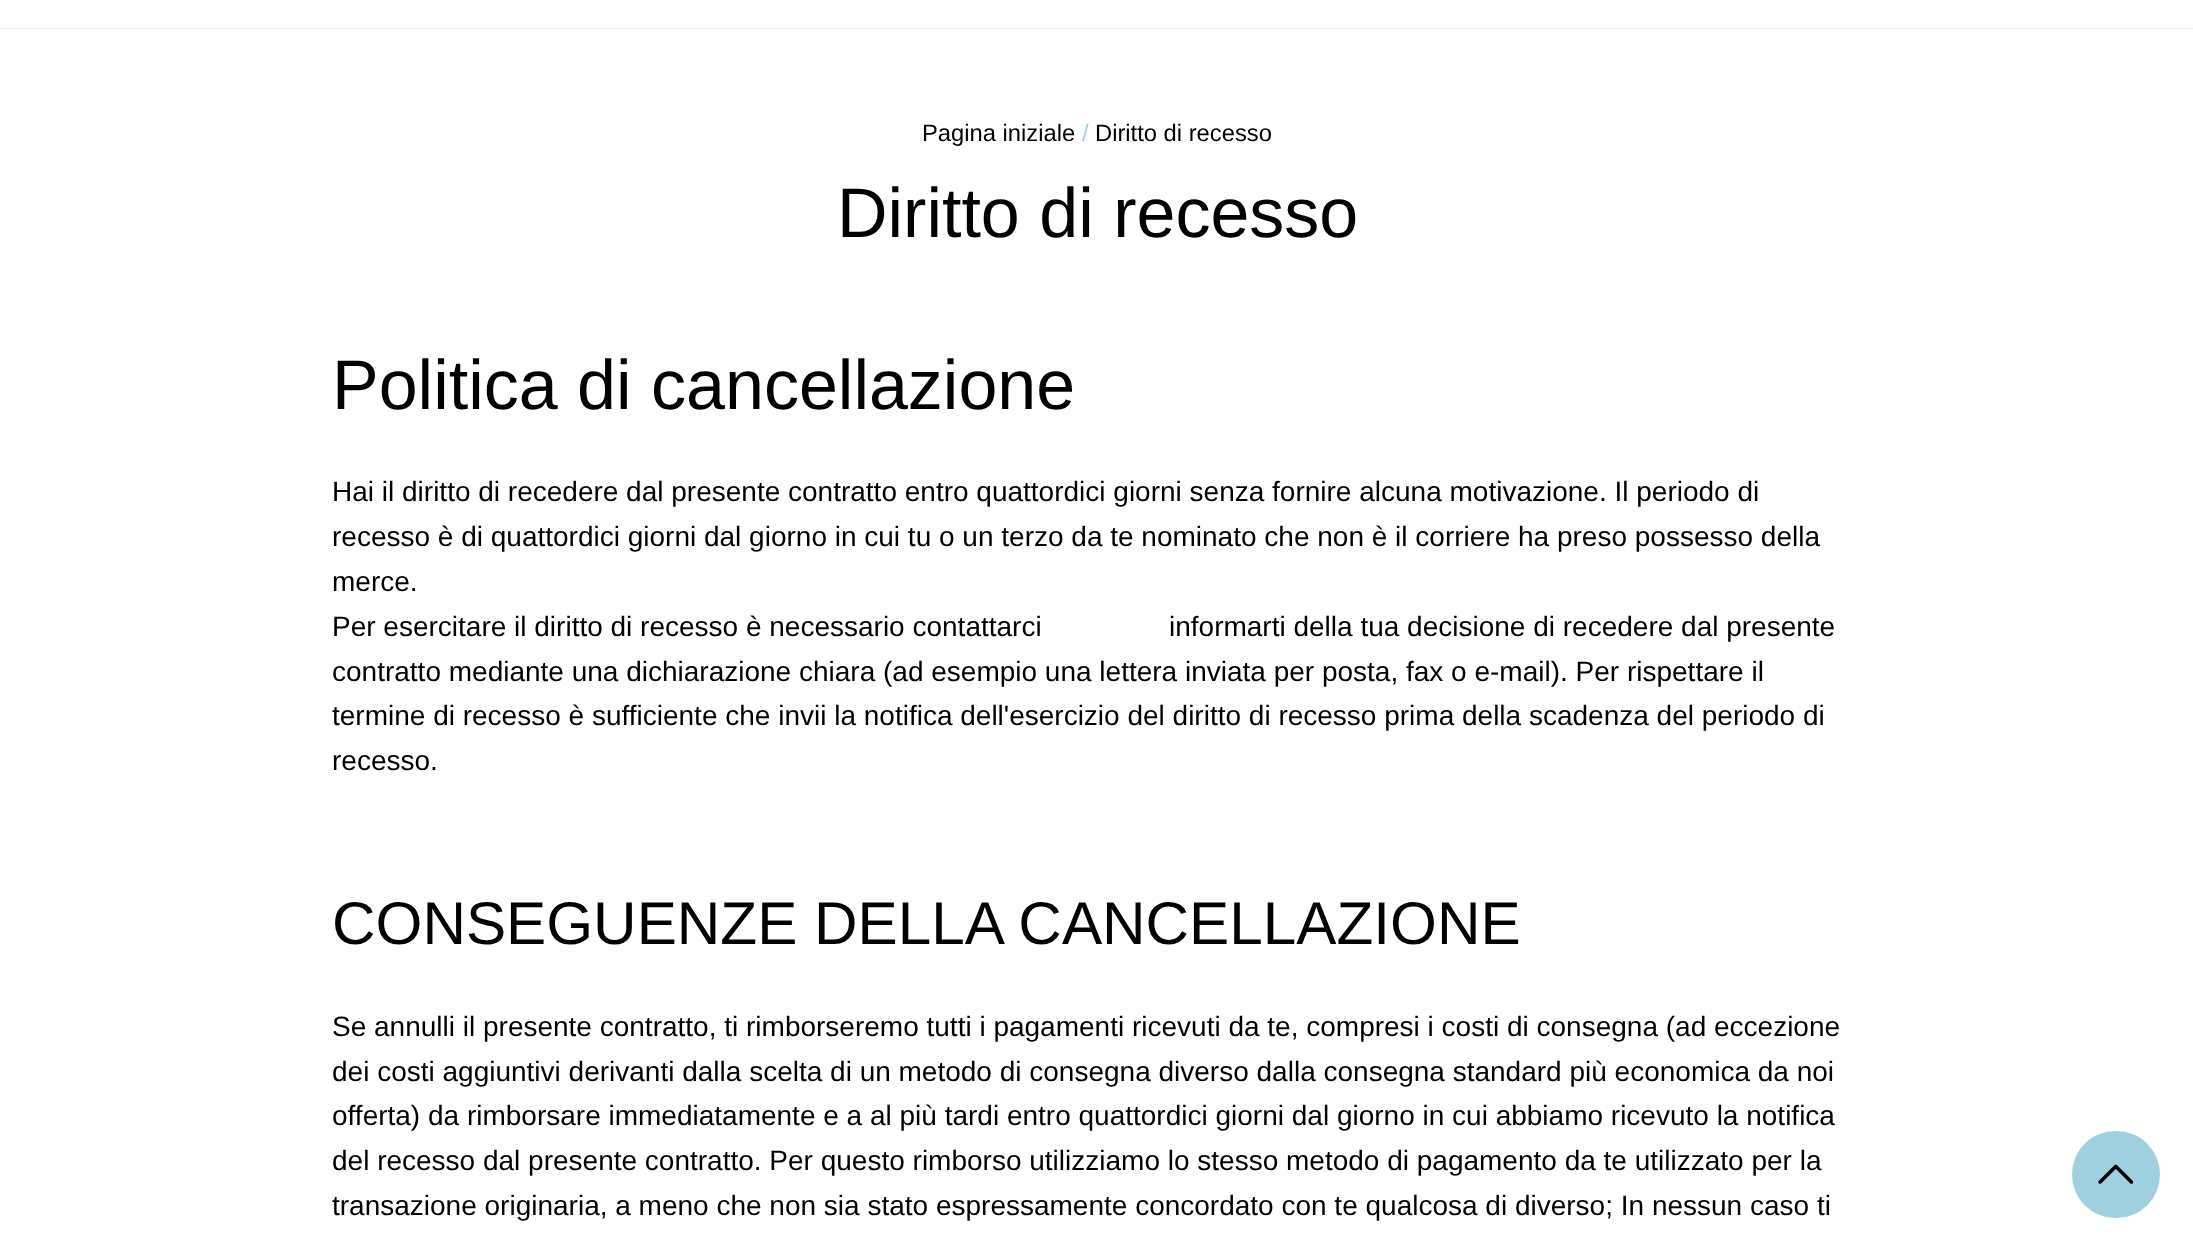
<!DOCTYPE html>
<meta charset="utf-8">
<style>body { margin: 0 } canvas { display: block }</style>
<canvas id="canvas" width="2193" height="1252"></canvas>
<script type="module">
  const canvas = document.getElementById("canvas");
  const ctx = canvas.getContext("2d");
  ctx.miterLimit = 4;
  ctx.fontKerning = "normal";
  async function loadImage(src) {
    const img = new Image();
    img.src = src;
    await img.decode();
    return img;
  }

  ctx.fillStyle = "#ffffff";
  ctx.fillRect(0, 0, 2193, 1252);
  ctx.save();
  ctx.beginPath();
  ctx.rect(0, 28, 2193, 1);
  ctx.clip();
  ctx.fillStyle = "rgba(0, 0, 0, 0.2)";
  ctx.filter = "blur(1px)";
  ctx.beginPath();
  ctx.rect(0, -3, 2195, 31);
  ctx.fill();
  ctx.filter = "none";
  ctx.restore();
  ctx.font = "23.75px Liberation Sans";
  ctx.fillStyle = "#000000";
  ctx.fillText("Pagina iniziale", 922, 141);
  ctx.fillStyle = "#9ed0e0";
  ctx.fillText("/", 1082, 141);
  ctx.fillStyle = "#000000";
  ctx.fillText("Diritto di recesso", 1095, 141);
  ctx.font = "70px Liberation Sans";
  ctx.fillText("Diritto di recesso", 837, 237);
  ctx.fillText("Politica di cancellazione", 332, 409);
  ctx.font = "28px Liberation Sans";
  ctx.fillText("Hai il diritto di recedere dal presente contratto entro quattordici giorni senza fornire alcuna motivazione. Il periodo di", 332, 501);
  ctx.fillText("recesso è di quattordici giorni dal giorno in cui tu o un terzo da te nominato che non è il corriere ha preso possesso della", 332, 546);
  ctx.fillText("merce.", 332, 591);
  ctx.fillText("Per esercitare il diritto di recesso è necessario contattarci", 332, 636);
  ctx.fillText("informarti della tua decisione di recedere dal presente", 1169, 636);
  ctx.fillText("contratto mediante una dichiarazione chiara (ad esempio una lettera inviata per posta, fax o e-mail). Per rispettare il", 332, 681);
  ctx.fillText("termine di recesso è sufficiente che invii la notifica dell'esercizio del diritto di recesso prima della scadenza del periodo di", 332, 725);
  ctx.fillText("recesso.", 332, 770);
  ctx.font = "60.25px Liberation Sans";
  ctx.fillText("CONSEGUENZE DELLA CANCELLAZIONE", 332, 944);
  ctx.font = "28px Liberation Sans";
  ctx.fillText("Se annulli il presente contratto, ti rimborseremo tutti i pagamenti ricevuti da te, compresi i costi di consegna (ad eccezione", 332, 1036);
  ctx.fillText("dei costi aggiuntivi derivanti dalla scelta di un metodo di consegna diverso dalla consegna standard più economica da noi", 332, 1081);
  ctx.fillText("offerta) da rimborsare immediatamente e a al più tardi entro quattordici giorni dal giorno in cui abbiamo ricevuto la notifica", 332, 1125);
  ctx.fillText("del recesso dal presente contratto. Per questo rimborso utilizziamo lo stesso metodo di pagamento da te utilizzato per la", 332, 1170);
  ctx.fillText("transazione originaria, a meno che non sia stato espressamente concordato con te qualcosa di diverso; In nessun caso ti", 332, 1215);
  ctx.fillStyle = "#9ed0e0";
  ctx.beginPath();
  ctx.roundRect(2072, 1131, 88, 87, 43.5);
  ctx.fill();
  ctx.drawImage(await loadImage("img1.png"), 2098, 1164, 35, 20);
</script>
